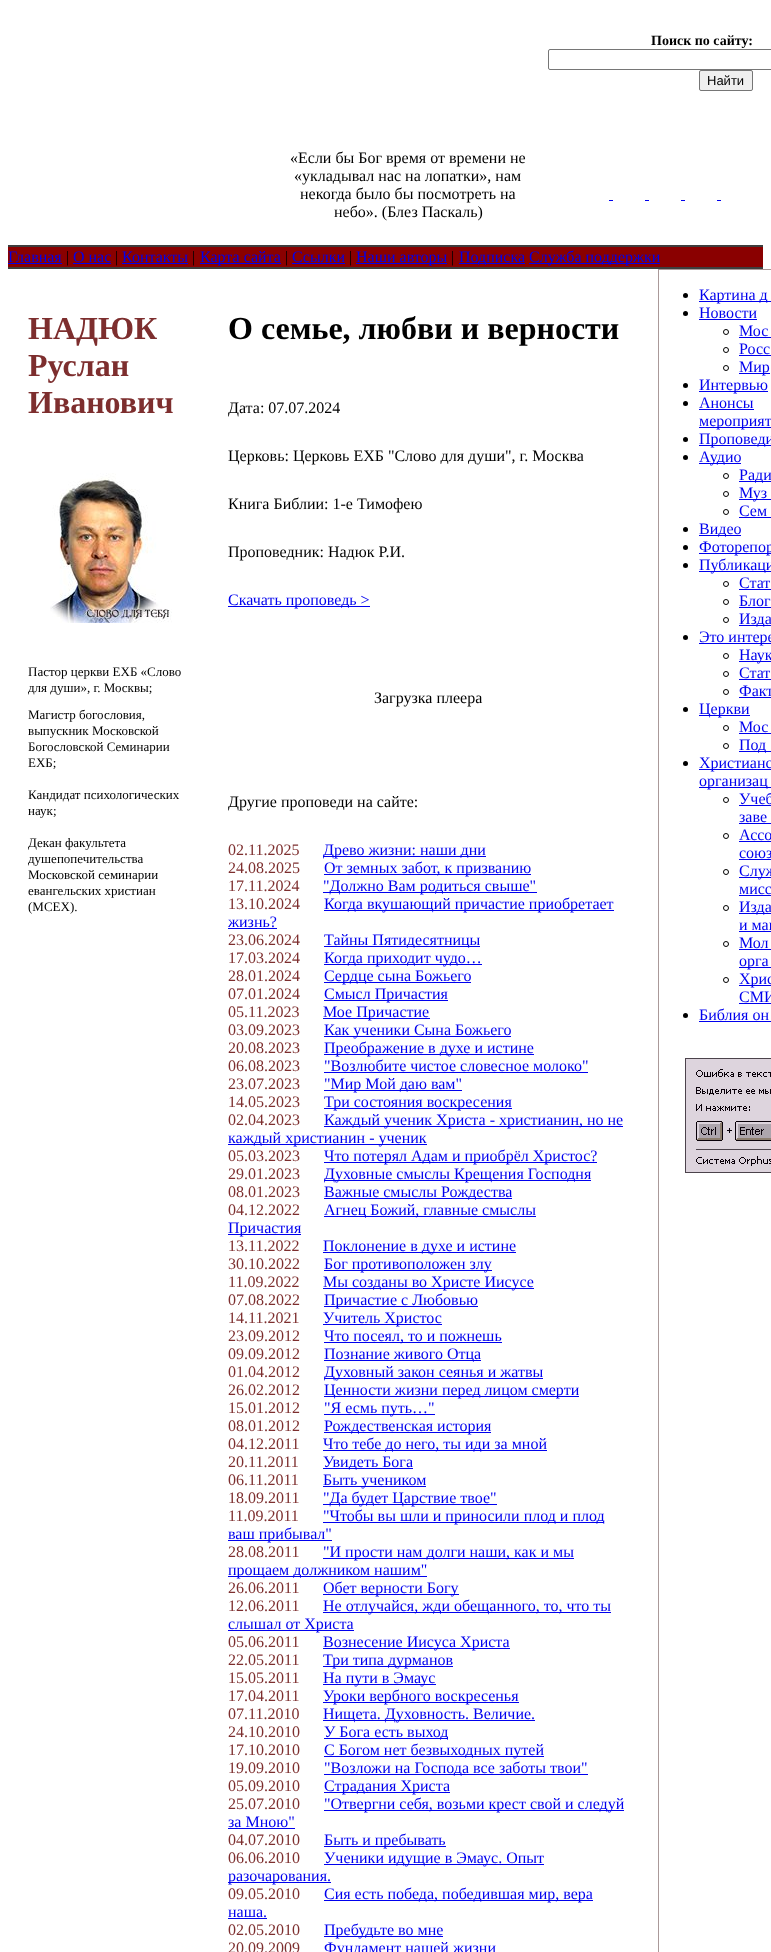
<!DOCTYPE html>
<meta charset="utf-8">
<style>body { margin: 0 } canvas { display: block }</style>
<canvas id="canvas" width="771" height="1952"></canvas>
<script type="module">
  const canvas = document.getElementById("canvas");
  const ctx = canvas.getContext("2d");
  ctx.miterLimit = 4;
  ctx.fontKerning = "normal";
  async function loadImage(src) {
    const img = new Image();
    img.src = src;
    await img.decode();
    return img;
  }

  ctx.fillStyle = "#ffffff";
  ctx.fillRect(0, 0, 771, 1952);
  ctx.font = "bold 14px Liberation Serif";
  ctx.fillStyle = "#000000";
  ctx.fillText("Поиск по сайту:", 651, 45);
  ctx.beginPath();
  ctx.roundRect(548.5, 49.5, 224, 20, 1.5);
  ctx.strokeStyle = "#767676";
  ctx.stroke();
  ctx.fillStyle = "#efefef";
  ctx.beginPath();
  ctx.roundRect(699.5, 70.5, 53, 20, 1.5);
  ctx.fill();
  ctx.stroke();
  ctx.font = "13px Liberation Sans";
  ctx.fillStyle = "#000000";
  ctx.fillText("Найти", 707, 85);
  ctx.font = "16px Liberation Serif";
  ctx.fillText("«Если бы Бог время от времени не", 290, 163);
  ctx.fillText("«укладывал нас на лопатки», нам", 294, 181);
  ctx.fillText("некогда было бы посмотреть на", 300, 199);
  ctx.fillText("небо». (Блез Паскаль)", 334, 217);
  ctx.fillStyle = "#0000ee";
  ctx.fillRect(609, 200, 4, 1);
  ctx.fillRect(645, 200, 4, 1);
  ctx.fillRect(681, 200, 4, 1);
  ctx.fillRect(717, 200, 4, 1);
  ctx.fillStyle = "#3d3d3d";
  ctx.fillRect(8, 245, 755, 2);
  ctx.fillStyle = "#8a0000";
  ctx.fillRect(8, 247, 755, 20);
  ctx.fillStyle = "#0000ee";
  ctx.fillText("Главная", 8, 262);
  ctx.fillRect(8, 263, 54, 1);
  ctx.fillStyle = "#000000";
  ctx.fillText("|", 66, 262);
  ctx.fillStyle = "#0000ee";
  ctx.fillText("О нас", 73, 262);
  ctx.fillRect(73, 263, 38, 1);
  ctx.fillStyle = "#000000";
  ctx.fillText("|", 115, 262);
  ctx.fillStyle = "#0000ee";
  ctx.fillText("Контакты", 122, 262);
  ctx.fillRect(122, 263, 66, 1);
  ctx.fillStyle = "#000000";
  ctx.fillText("|", 192, 262);
  ctx.fillStyle = "#0000ee";
  ctx.fillRect(200, 263, 81, 1);
  ctx.fillText("Карта сайта", 200, 262);
  ctx.fillStyle = "#000000";
  ctx.fillText("|", 285, 262);
  ctx.fillStyle = "#0000ee";
  ctx.fillText("Ссылки", 292, 262);
  ctx.fillRect(292, 263, 53, 1);
  ctx.fillStyle = "#000000";
  ctx.fillText("|", 349, 262);
  ctx.fillStyle = "#0000ee";
  ctx.fillRect(356, 263, 91, 1);
  ctx.fillText("Наши авторы", 356, 262);
  ctx.fillStyle = "#000000";
  ctx.fillText("|", 451, 262);
  ctx.fillStyle = "#0000ee";
  ctx.fillRect(459, 263, 66, 1);
  ctx.fillText("Подписка", 459, 262);
  ctx.fillRect(529, 263, 131, 1);
  ctx.fillText("Служба поддержки", 529, 262);
  ctx.fillStyle = "#3d3d3d";
  ctx.fillRect(8, 267, 755, 2);
  ctx.font = "bold 32px Liberation Serif";
  ctx.fillStyle = "#7d2e2e";
  ctx.fillText("НАДЮК", 28, 339);
  ctx.fillText("Руслан", 28, 376);
  ctx.fillText("Иванович", 28, 413);
  ctx.drawImage(await loadImage("img1.png"), 50, 473, 122, 150);
  ctx.font = "13px Liberation Serif";
  ctx.fillStyle = "#000000";
  ctx.fillText("Пастор церкви ЕХБ «Слово", 28, 676);
  ctx.fillText("для души», г. Москвы;", 28, 692);
  ctx.fillText("Магистр богословия,", 28, 719);
  ctx.fillText("выпускник Московской", 28, 735);
  ctx.fillText("Богословской Семинарии", 28, 751);
  ctx.fillText("ЕХБ;", 28, 767);
  ctx.fillText("Кандидат психологических", 28, 799);
  ctx.fillText("наук;", 28, 815);
  ctx.fillText("Декан факультета", 28, 847);
  ctx.fillText("душепопечительства", 28, 863);
  ctx.fillText("Московской семинарии", 28, 879);
  ctx.fillText("евангельских христиан", 28, 895);
  ctx.fillText("(МСЕХ).", 28, 911);
  ctx.font = "bold 32px Liberation Serif";
  ctx.fillText("О семье, любви и верности", 228, 339);
  ctx.font = "16px Liberation Serif";
  ctx.fillText("Дата: 07.07.2024", 228, 413);
  ctx.fillText("Церковь: Церковь ЕХБ \"Слово для души\", г. Москва", 228, 461);
  ctx.fillText("Книга Библии: 1-е Тимофею", 228, 509);
  ctx.fillText("Проповедник: Надюк Р.И.", 228, 557);
  ctx.fillStyle = "#0000ee";
  ctx.fillRect(228, 606, 142, 1);
  ctx.fillText("Скачать проповедь >", 228, 605);
  ctx.fillStyle = "#000000";
  ctx.fillText("Загрузка плеера", 374, 703);
  ctx.fillText("Другие проповеди на сайте:", 228, 807);
  ctx.fillStyle = "#7d2e2e";
  ctx.fillText("02.11.2025", 228, 855);
  ctx.fillStyle = "#0000ee";
  ctx.fillRect(323, 856, 163, 1);
  ctx.fillText("Древо жизни: наши дни", 323, 855);
  ctx.fillStyle = "#7d2e2e";
  ctx.fillText("24.08.2025", 228, 873);
  ctx.fillStyle = "#0000ee";
  ctx.fillRect(324, 874, 207, 1);
  ctx.fillText("От земных забот, к призванию", 324, 873);
  ctx.fillStyle = "#7d2e2e";
  ctx.fillText("17.11.2024", 228, 891);
  ctx.fillStyle = "#0000ee";
  ctx.fillRect(323, 892, 214, 1);
  ctx.fillText("\"Должно Вам родиться свыше\"", 323, 891);
  ctx.fillStyle = "#7d2e2e";
  ctx.fillText("13.10.2024", 228, 909);
  ctx.fillStyle = "#0000ee";
  ctx.fillRect(324, 910, 290, 1);
  ctx.fillText("Когда вкушающий причастие приобретает", 324, 909);
  ctx.fillText("жизнь?", 228, 927);
  ctx.fillRect(228, 928, 49, 1);
  ctx.fillStyle = "#7d2e2e";
  ctx.fillText("23.06.2024", 228, 945);
  ctx.fillStyle = "#0000ee";
  ctx.fillRect(324, 946, 156, 1);
  ctx.fillText("Тайны Пятидесятницы", 324, 945);
  ctx.fillStyle = "#7d2e2e";
  ctx.fillText("17.03.2024", 228, 963);
  ctx.fillStyle = "#0000ee";
  ctx.fillRect(324, 964, 158, 1);
  ctx.fillText("Когда приходит чудо…", 324, 963);
  ctx.fillStyle = "#7d2e2e";
  ctx.fillText("28.01.2024", 228, 981);
  ctx.fillStyle = "#0000ee";
  ctx.fillRect(324, 982, 147, 1);
  ctx.fillText("Сердце сына Божьего", 324, 981);
  ctx.fillStyle = "#7d2e2e";
  ctx.fillText("07.01.2024", 228, 999);
  ctx.fillStyle = "#0000ee";
  ctx.fillRect(324, 1000, 124, 1);
  ctx.fillText("Смысл Причастия", 324, 999);
  ctx.fillStyle = "#7d2e2e";
  ctx.fillText("05.11.2023", 228, 1017);
  ctx.fillStyle = "#0000ee";
  ctx.fillRect(323, 1018, 107, 1);
  ctx.fillText("Мое Причастие", 323, 1017);
  ctx.fillStyle = "#7d2e2e";
  ctx.fillText("03.09.2023", 228, 1035);
  ctx.fillStyle = "#0000ee";
  ctx.fillRect(324, 1036, 187, 1);
  ctx.fillText("Как ученики Сына Божьего", 324, 1035);
  ctx.fillStyle = "#7d2e2e";
  ctx.fillText("20.08.2023", 228, 1053);
  ctx.fillStyle = "#0000ee";
  ctx.fillRect(324, 1054, 210, 1);
  ctx.fillText("Преображение в духе и истине", 324, 1053);
  ctx.fillStyle = "#7d2e2e";
  ctx.fillText("06.08.2023", 228, 1071);
  ctx.fillStyle = "#0000ee";
  ctx.fillText("\"Возлюбите чистое словесное молоко\"", 324, 1071);
  ctx.fillRect(324, 1072, 264, 1);
  ctx.fillStyle = "#7d2e2e";
  ctx.fillText("23.07.2023", 228, 1089);
  ctx.fillStyle = "#0000ee";
  ctx.fillRect(324, 1090, 138, 1);
  ctx.fillText("\"Мир Мой даю вам\"", 324, 1089);
  ctx.fillStyle = "#7d2e2e";
  ctx.fillText("14.05.2023", 228, 1107);
  ctx.fillStyle = "#0000ee";
  ctx.fillRect(324, 1108, 188, 1);
  ctx.fillText("Три состояния воскресения", 324, 1107);
  ctx.fillStyle = "#7d2e2e";
  ctx.fillText("02.04.2023", 228, 1125);
  ctx.fillStyle = "#0000ee";
  ctx.fillRect(324, 1126, 299, 1);
  ctx.fillText("Каждый ученик Христа - христианин, но не", 324, 1125);
  ctx.fillRect(228, 1144, 199, 1);
  ctx.fillText("каждый христианин - ученик", 228, 1143);
  ctx.fillStyle = "#7d2e2e";
  ctx.fillText("05.03.2023", 228, 1161);
  ctx.fillStyle = "#0000ee";
  ctx.fillRect(324, 1162, 273, 1);
  ctx.fillText("Что потерял Адам и приобрёл Христос?", 324, 1161);
  ctx.fillStyle = "#7d2e2e";
  ctx.fillText("29.01.2023", 228, 1179);
  ctx.fillStyle = "#0000ee";
  ctx.fillRect(324, 1180, 267, 1);
  ctx.fillText("Духовные смыслы Крещения Господня", 324, 1179);
  ctx.fillStyle = "#7d2e2e";
  ctx.fillText("08.01.2023", 228, 1197);
  ctx.fillStyle = "#0000ee";
  ctx.fillRect(324, 1198, 188, 1);
  ctx.fillText("Важные смыслы Рождества", 324, 1197);
  ctx.fillStyle = "#7d2e2e";
  ctx.fillText("04.12.2022", 228, 1215);
  ctx.fillStyle = "#0000ee";
  ctx.fillRect(324, 1216, 212, 1);
  ctx.fillText("Агнец Божий, главные смыслы", 324, 1215);
  ctx.fillRect(228, 1234, 73, 1);
  ctx.fillText("Причастия", 228, 1233);
  ctx.fillStyle = "#7d2e2e";
  ctx.fillText("13.11.2022", 228, 1251);
  ctx.fillStyle = "#0000ee";
  ctx.fillRect(323, 1252, 193, 1);
  ctx.fillText("Поклонение в духе и истине", 323, 1251);
  ctx.fillStyle = "#7d2e2e";
  ctx.fillText("30.10.2022", 228, 1269);
  ctx.fillStyle = "#0000ee";
  ctx.fillRect(324, 1270, 168, 1);
  ctx.fillText("Бог противоположен злу", 324, 1269);
  ctx.fillStyle = "#7d2e2e";
  ctx.fillText("11.09.2022", 228, 1287);
  ctx.fillStyle = "#0000ee";
  ctx.fillRect(323, 1288, 211, 1);
  ctx.fillText("Мы созданы во Христе Иисусе", 323, 1287);
  ctx.fillStyle = "#7d2e2e";
  ctx.fillText("07.08.2022", 228, 1305);
  ctx.fillStyle = "#0000ee";
  ctx.fillRect(324, 1306, 154, 1);
  ctx.fillText("Причастие с Любовью", 324, 1305);
  ctx.fillStyle = "#7d2e2e";
  ctx.fillText("14.11.2021", 228, 1323);
  ctx.fillStyle = "#0000ee";
  ctx.fillRect(323, 1324, 119, 1);
  ctx.fillText("Учитель Христос", 323, 1323);
  ctx.fillStyle = "#7d2e2e";
  ctx.fillText("23.09.2012", 228, 1341);
  ctx.fillStyle = "#0000ee";
  ctx.fillRect(324, 1342, 178, 1);
  ctx.fillText("Что посеял, то и пожнешь", 324, 1341);
  ctx.fillStyle = "#7d2e2e";
  ctx.fillText("09.09.2012", 228, 1359);
  ctx.fillStyle = "#0000ee";
  ctx.fillRect(324, 1360, 157, 1);
  ctx.fillText("Познание живого Отца", 324, 1359);
  ctx.fillStyle = "#7d2e2e";
  ctx.fillText("01.04.2012", 228, 1377);
  ctx.fillStyle = "#0000ee";
  ctx.fillRect(324, 1378, 219, 1);
  ctx.fillText("Духовный закон сеянья и жатвы", 324, 1377);
  ctx.fillStyle = "#7d2e2e";
  ctx.fillText("26.02.2012", 228, 1395);
  ctx.fillStyle = "#0000ee";
  ctx.fillRect(324, 1396, 255, 1);
  ctx.fillText("Ценности жизни перед лицом смерти", 324, 1395);
  ctx.fillStyle = "#7d2e2e";
  ctx.fillText("15.01.2012", 228, 1413);
  ctx.fillStyle = "#0000ee";
  ctx.fillRect(324, 1414, 111, 1);
  ctx.fillText("\"Я есмь путь…\"", 324, 1413);
  ctx.fillStyle = "#7d2e2e";
  ctx.fillText("08.01.2012", 228, 1431);
  ctx.fillStyle = "#0000ee";
  ctx.fillRect(324, 1432, 167, 1);
  ctx.fillText("Рождественская история", 324, 1431);
  ctx.fillStyle = "#7d2e2e";
  ctx.fillText("04.12.2011", 228, 1449);
  ctx.fillStyle = "#0000ee";
  ctx.fillRect(323, 1450, 224, 1);
  ctx.fillText("Что тебе до него, ты иди за мной", 323, 1449);
  ctx.fillStyle = "#7d2e2e";
  ctx.fillText("20.11.2011", 228, 1467);
  ctx.fillStyle = "#0000ee";
  ctx.fillRect(323, 1468, 90, 1);
  ctx.fillText("Увидеть Бога", 323, 1467);
  ctx.fillStyle = "#7d2e2e";
  ctx.fillText("06.11.2011", 228, 1485);
  ctx.fillStyle = "#0000ee";
  ctx.fillRect(323, 1486, 103, 1);
  ctx.fillText("Быть учеником", 323, 1485);
  ctx.fillStyle = "#7d2e2e";
  ctx.fillText("18.09.2011", 228, 1503);
  ctx.fillStyle = "#0000ee";
  ctx.fillRect(323, 1504, 174, 1);
  ctx.fillText("\"Да будет Царствие твое\"", 323, 1503);
  ctx.fillStyle = "#7d2e2e";
  ctx.fillText("11.09.2011", 228, 1521);
  ctx.fillStyle = "#0000ee";
  ctx.fillRect(323, 1522, 281, 1);
  ctx.fillText("\"Чтобы вы шли и приносили плод и плод", 323, 1521);
  ctx.fillRect(228, 1540, 104, 1);
  ctx.fillText("ваш прибывал\"", 228, 1539);
  ctx.fillStyle = "#7d2e2e";
  ctx.fillText("28.08.2011", 228, 1557);
  ctx.fillStyle = "#0000ee";
  ctx.fillRect(323, 1558, 251, 1);
  ctx.fillText("\"И прости нам долги наши, как и мы", 323, 1557);
  ctx.fillRect(228, 1576, 199, 1);
  ctx.fillText("прощаем должником нашим\"", 228, 1575);
  ctx.fillStyle = "#7d2e2e";
  ctx.fillText("26.06.2011", 228, 1593);
  ctx.fillStyle = "#0000ee";
  ctx.fillRect(323, 1594, 136, 1);
  ctx.fillText("Обет верности Богу", 323, 1593);
  ctx.fillStyle = "#7d2e2e";
  ctx.fillText("12.06.2011", 228, 1611);
  ctx.fillStyle = "#0000ee";
  ctx.fillRect(323, 1612, 288, 1);
  ctx.fillText("Не отлучайся, жди обещанного, то, что ты", 323, 1611);
  ctx.fillRect(228, 1630, 126, 1);
  ctx.fillText("слышал от Христа", 228, 1629);
  ctx.fillStyle = "#7d2e2e";
  ctx.fillText("05.06.2011", 228, 1647);
  ctx.fillStyle = "#0000ee";
  ctx.fillRect(323, 1648, 187, 1);
  ctx.fillText("Вознесение Иисуса Христа", 323, 1647);
  ctx.fillStyle = "#7d2e2e";
  ctx.fillText("22.05.2011", 228, 1665);
  ctx.fillStyle = "#0000ee";
  ctx.fillRect(323, 1666, 130, 1);
  ctx.fillText("Три типа дурманов", 323, 1665);
  ctx.fillStyle = "#7d2e2e";
  ctx.fillText("15.05.2011", 228, 1683);
  ctx.fillStyle = "#0000ee";
  ctx.fillRect(323, 1684, 113, 1);
  ctx.fillText("На пути в Эмаус", 323, 1683);
  ctx.fillStyle = "#7d2e2e";
  ctx.fillText("17.04.2011", 228, 1701);
  ctx.fillStyle = "#0000ee";
  ctx.fillRect(323, 1702, 196, 1);
  ctx.fillText("Уроки вербного воскресенья", 323, 1701);
  ctx.fillStyle = "#7d2e2e";
  ctx.fillText("07.11.2010", 228, 1719);
  ctx.fillStyle = "#0000ee";
  ctx.fillRect(323, 1720, 212, 1);
  ctx.fillText("Нищета. Духовность. Величие.", 323, 1719);
  ctx.fillStyle = "#7d2e2e";
  ctx.fillText("24.10.2010", 228, 1737);
  ctx.fillStyle = "#0000ee";
  ctx.fillRect(324, 1738, 124, 1);
  ctx.fillText("У Бога есть выход", 324, 1737);
  ctx.fillStyle = "#7d2e2e";
  ctx.fillText("17.10.2010", 228, 1755);
  ctx.fillStyle = "#0000ee";
  ctx.fillRect(324, 1756, 220, 1);
  ctx.fillText("С Богом нет безвыходных путей", 324, 1755);
  ctx.fillStyle = "#7d2e2e";
  ctx.fillText("19.09.2010", 228, 1773);
  ctx.fillStyle = "#0000ee";
  ctx.fillRect(324, 1774, 264, 1);
  ctx.fillText("\"Возложи на Господа все заботы твои\"", 324, 1773);
  ctx.fillStyle = "#7d2e2e";
  ctx.fillText("05.09.2010", 228, 1791);
  ctx.fillStyle = "#0000ee";
  ctx.fillRect(324, 1792, 126, 1);
  ctx.fillText("Страдания Христа", 324, 1791);
  ctx.fillStyle = "#7d2e2e";
  ctx.fillText("25.07.2010", 228, 1809);
  ctx.fillStyle = "#0000ee";
  ctx.fillRect(324, 1810, 300, 1);
  ctx.fillText("\"Отвергни себя, возьми крест свой и следуй", 324, 1809);
  ctx.fillText("за Мною\"", 228, 1827);
  ctx.fillRect(228, 1828, 67, 1);
  ctx.fillStyle = "#7d2e2e";
  ctx.fillText("04.07.2010", 228, 1845);
  ctx.fillStyle = "#0000ee";
  ctx.fillRect(324, 1846, 122, 1);
  ctx.fillText("Быть и пребывать", 324, 1845);
  ctx.fillStyle = "#7d2e2e";
  ctx.fillText("06.06.2010", 228, 1863);
  ctx.fillStyle = "#0000ee";
  ctx.fillRect(324, 1864, 220, 1);
  ctx.fillText("Ученики идущие в Эмаус. Опыт", 324, 1863);
  ctx.fillRect(228, 1882, 103, 1);
  ctx.fillText("разочарования.", 228, 1881);
  ctx.fillStyle = "#7d2e2e";
  ctx.fillText("09.05.2010", 228, 1899);
  ctx.fillStyle = "#0000ee";
  ctx.fillRect(324, 1900, 269, 1);
  ctx.fillText("Сия есть победа, победившая мир, вера", 324, 1899);
  ctx.fillText("наша.", 228, 1917);
  ctx.fillRect(228, 1918, 39, 1);
  ctx.fillStyle = "#7d2e2e";
  ctx.fillText("02.05.2010", 228, 1935);
  ctx.fillStyle = "#0000ee";
  ctx.fillRect(324, 1936, 119, 1);
  ctx.fillText("Пребудьте во мне", 324, 1935);
  ctx.fillStyle = "#7d2e2e";
  ctx.fillText("20.09.2009", 228, 1953);
  ctx.fillStyle = "#0000ee";
  ctx.fillText("Фундамент нашей жизни", 324, 1953);
  ctx.strokeStyle = "#aa9999";
  ctx.strokeRect(658.5, 269.5, 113, 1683);
  ctx.fillStyle = "#000000";
  ctx.beginPath();
  ctx.arc(685.5, 295.5, 2.5, 0, Math.PI * 2);
  ctx.fill();
  ctx.fillStyle = "#0000ee";
  ctx.fillRect(699, 301, 72, 1);
  ctx.fillText("Картина д", 699, 300);
  ctx.fillStyle = "#000000";
  ctx.beginPath();
  ctx.arc(685.5, 313.5, 2.5, 0, Math.PI * 2);
  ctx.fill();
  ctx.fillStyle = "#0000ee";
  ctx.fillText("Новости", 699, 318);
  ctx.fillRect(699, 319, 58, 1);
  ctx.beginPath();
  ctx.arc(726, 332, 2.5, 0, Math.PI * 2);
  ctx.strokeStyle = "#000000";
  ctx.stroke();
  ctx.fillText("Мос", 739, 336);
  ctx.fillRect(739, 337, 32, 1);
  ctx.beginPath();
  ctx.arc(726, 350, 2.5, 0, Math.PI * 2);
  ctx.stroke();
  ctx.fillText("Росс", 739, 354);
  ctx.fillRect(739, 355, 32, 1);
  ctx.beginPath();
  ctx.arc(726, 368, 2.5, 0, Math.PI * 2);
  ctx.stroke();
  ctx.fillRect(739, 373, 31, 1);
  ctx.fillText("Мир", 739, 372);
  ctx.fillStyle = "#000000";
  ctx.beginPath();
  ctx.arc(685.5, 385.5, 2.5, 0, Math.PI * 2);
  ctx.fill();
  ctx.fillStyle = "#0000ee";
  ctx.fillRect(699, 391, 69, 1);
  ctx.fillText("Интервью", 699, 390);
  ctx.fillStyle = "#000000";
  ctx.beginPath();
  ctx.arc(685.5, 403.5, 2.5, 0, Math.PI * 2);
  ctx.fill();
  ctx.fillStyle = "#0000ee";
  ctx.fillText("Анонсы", 699, 408);
  ctx.fillRect(699, 409, 55, 1);
  ctx.fillRect(699, 427, 72, 1);
  ctx.fillText("мероприят", 699, 426);
  ctx.fillStyle = "#000000";
  ctx.beginPath();
  ctx.arc(685.5, 439.5, 2.5, 0, Math.PI * 2);
  ctx.fill();
  ctx.fillStyle = "#0000ee";
  ctx.fillRect(699, 445, 72, 1);
  ctx.fillText("Проповеди", 699, 444);
  ctx.fillStyle = "#000000";
  ctx.beginPath();
  ctx.arc(685.5, 457.5, 2.5, 0, Math.PI * 2);
  ctx.fill();
  ctx.fillStyle = "#0000ee";
  ctx.fillRect(699, 463, 42, 1);
  ctx.fillText("Аудио", 699, 462);
  ctx.beginPath();
  ctx.arc(726, 476, 2.5, 0, Math.PI * 2);
  ctx.stroke();
  ctx.fillRect(739, 481, 32, 1);
  ctx.fillText("Ради", 739, 480);
  ctx.beginPath();
  ctx.arc(726, 494, 2.5, 0, Math.PI * 2);
  ctx.stroke();
  ctx.fillRect(739, 499, 32, 1);
  ctx.fillText("Муз", 739, 498);
  ctx.beginPath();
  ctx.arc(726, 512, 2.5, 0, Math.PI * 2);
  ctx.stroke();
  ctx.fillText("Сем", 739, 516);
  ctx.fillRect(739, 517, 32, 1);
  ctx.fillStyle = "#000000";
  ctx.beginPath();
  ctx.arc(685.5, 529.5, 2.5, 0, Math.PI * 2);
  ctx.fill();
  ctx.fillStyle = "#0000ee";
  ctx.fillRect(699, 535, 42, 1);
  ctx.fillText("Видео", 699, 534);
  ctx.fillStyle = "#000000";
  ctx.beginPath();
  ctx.arc(685.5, 547.5, 2.5, 0, Math.PI * 2);
  ctx.fill();
  ctx.fillStyle = "#0000ee";
  ctx.fillRect(699, 553, 72, 1);
  ctx.fillText("Фоторепор", 699, 552);
  ctx.fillStyle = "#000000";
  ctx.beginPath();
  ctx.arc(685.5, 565.5, 2.5, 0, Math.PI * 2);
  ctx.fill();
  ctx.fillStyle = "#0000ee";
  ctx.fillRect(699, 571, 72, 1);
  ctx.fillText("Публикаци", 699, 570);
  ctx.beginPath();
  ctx.arc(726, 584, 2.5, 0, Math.PI * 2);
  ctx.stroke();
  ctx.fillText("Стат", 739, 588);
  ctx.fillRect(739, 589, 32, 1);
  ctx.beginPath();
  ctx.arc(726, 602, 2.5, 0, Math.PI * 2);
  ctx.stroke();
  ctx.fillText("Блог", 739, 606);
  ctx.fillRect(739, 607, 32, 1);
  ctx.beginPath();
  ctx.arc(726, 620, 2.5, 0, Math.PI * 2);
  ctx.stroke();
  ctx.fillRect(739, 625, 32, 1);
  ctx.fillText("Изда", 739, 624);
  ctx.fillStyle = "#000000";
  ctx.beginPath();
  ctx.arc(685.5, 637.5, 2.5, 0, Math.PI * 2);
  ctx.fill();
  ctx.fillStyle = "#0000ee";
  ctx.fillRect(699, 643, 72, 1);
  ctx.fillText("Это интере", 699, 642);
  ctx.beginPath();
  ctx.arc(726, 656, 2.5, 0, Math.PI * 2);
  ctx.stroke();
  ctx.fillRect(739, 661, 32, 1);
  ctx.fillText("Наук", 739, 660);
  ctx.beginPath();
  ctx.arc(726, 674, 2.5, 0, Math.PI * 2);
  ctx.stroke();
  ctx.fillText("Стат", 739, 678);
  ctx.fillRect(739, 679, 32, 1);
  ctx.beginPath();
  ctx.arc(726, 692, 2.5, 0, Math.PI * 2);
  ctx.stroke();
  ctx.fillText("Факт", 739, 696);
  ctx.fillRect(739, 697, 32, 1);
  ctx.fillStyle = "#000000";
  ctx.beginPath();
  ctx.arc(685.5, 709.5, 2.5, 0, Math.PI * 2);
  ctx.fill();
  ctx.fillStyle = "#0000ee";
  ctx.fillRect(699, 715, 51, 1);
  ctx.fillText("Церкви", 699, 714);
  ctx.beginPath();
  ctx.arc(726, 728, 2.5, 0, Math.PI * 2);
  ctx.stroke();
  ctx.fillText("Мос", 739, 732);
  ctx.fillRect(739, 733, 32, 1);
  ctx.beginPath();
  ctx.arc(726, 746, 2.5, 0, Math.PI * 2);
  ctx.stroke();
  ctx.fillRect(739, 751, 32, 1);
  ctx.fillText("Под", 739, 750);
  ctx.fillStyle = "#000000";
  ctx.beginPath();
  ctx.arc(685.5, 763.5, 2.5, 0, Math.PI * 2);
  ctx.fill();
  ctx.fillStyle = "#0000ee";
  ctx.fillRect(699, 769, 72, 1);
  ctx.fillText("Христианс", 699, 768);
  ctx.fillRect(699, 787, 72, 1);
  ctx.fillText("организац", 699, 786);
  ctx.beginPath();
  ctx.arc(726, 800, 2.5, 0, Math.PI * 2);
  ctx.stroke();
  ctx.fillText("Учеб", 739, 804);
  ctx.fillRect(739, 805, 32, 1);
  ctx.fillText("заве", 739, 822);
  ctx.fillRect(739, 823, 32, 1);
  ctx.beginPath();
  ctx.arc(726, 836, 2.5, 0, Math.PI * 2);
  ctx.stroke();
  ctx.fillText("Ассо", 739, 840);
  ctx.fillRect(739, 841, 32, 1);
  ctx.fillText("союз", 739, 858);
  ctx.fillRect(739, 859, 32, 1);
  ctx.beginPath();
  ctx.arc(726, 872, 2.5, 0, Math.PI * 2);
  ctx.stroke();
  ctx.fillRect(739, 877, 32, 1);
  ctx.fillText("Служ", 739, 876);
  ctx.fillText("мисс", 739, 894);
  ctx.fillRect(739, 895, 32, 1);
  ctx.beginPath();
  ctx.arc(726, 908, 2.5, 0, Math.PI * 2);
  ctx.stroke();
  ctx.fillRect(739, 913, 32, 1);
  ctx.fillText("Изда", 739, 912);
  ctx.fillText("и маг", 739, 930);
  ctx.fillRect(739, 931, 32, 1);
  ctx.beginPath();
  ctx.arc(726, 944, 2.5, 0, Math.PI * 2);
  ctx.stroke();
  ctx.fillText("Мол", 739, 948);
  ctx.fillRect(739, 949, 32, 1);
  ctx.fillRect(739, 967, 32, 1);
  ctx.fillText("орга", 739, 966);
  ctx.beginPath();
  ctx.arc(726, 980, 2.5, 0, Math.PI * 2);
  ctx.stroke();
  ctx.fillRect(739, 985, 32, 1);
  ctx.fillText("Хрис", 739, 984);
  ctx.fillText("СМИ", 739, 1002);
  ctx.fillRect(739, 1003, 32, 1);
  ctx.fillStyle = "#000000";
  ctx.beginPath();
  ctx.arc(685.5, 1015.5, 2.5, 0, Math.PI * 2);
  ctx.fill();
  ctx.fillStyle = "#0000ee";
  ctx.fillText("Библия он", 699, 1020);
  ctx.fillRect(699, 1021, 72, 1);
  ctx.drawImage(await loadImage("img2.png"), 685, 1058, 86, 115);
</script>
